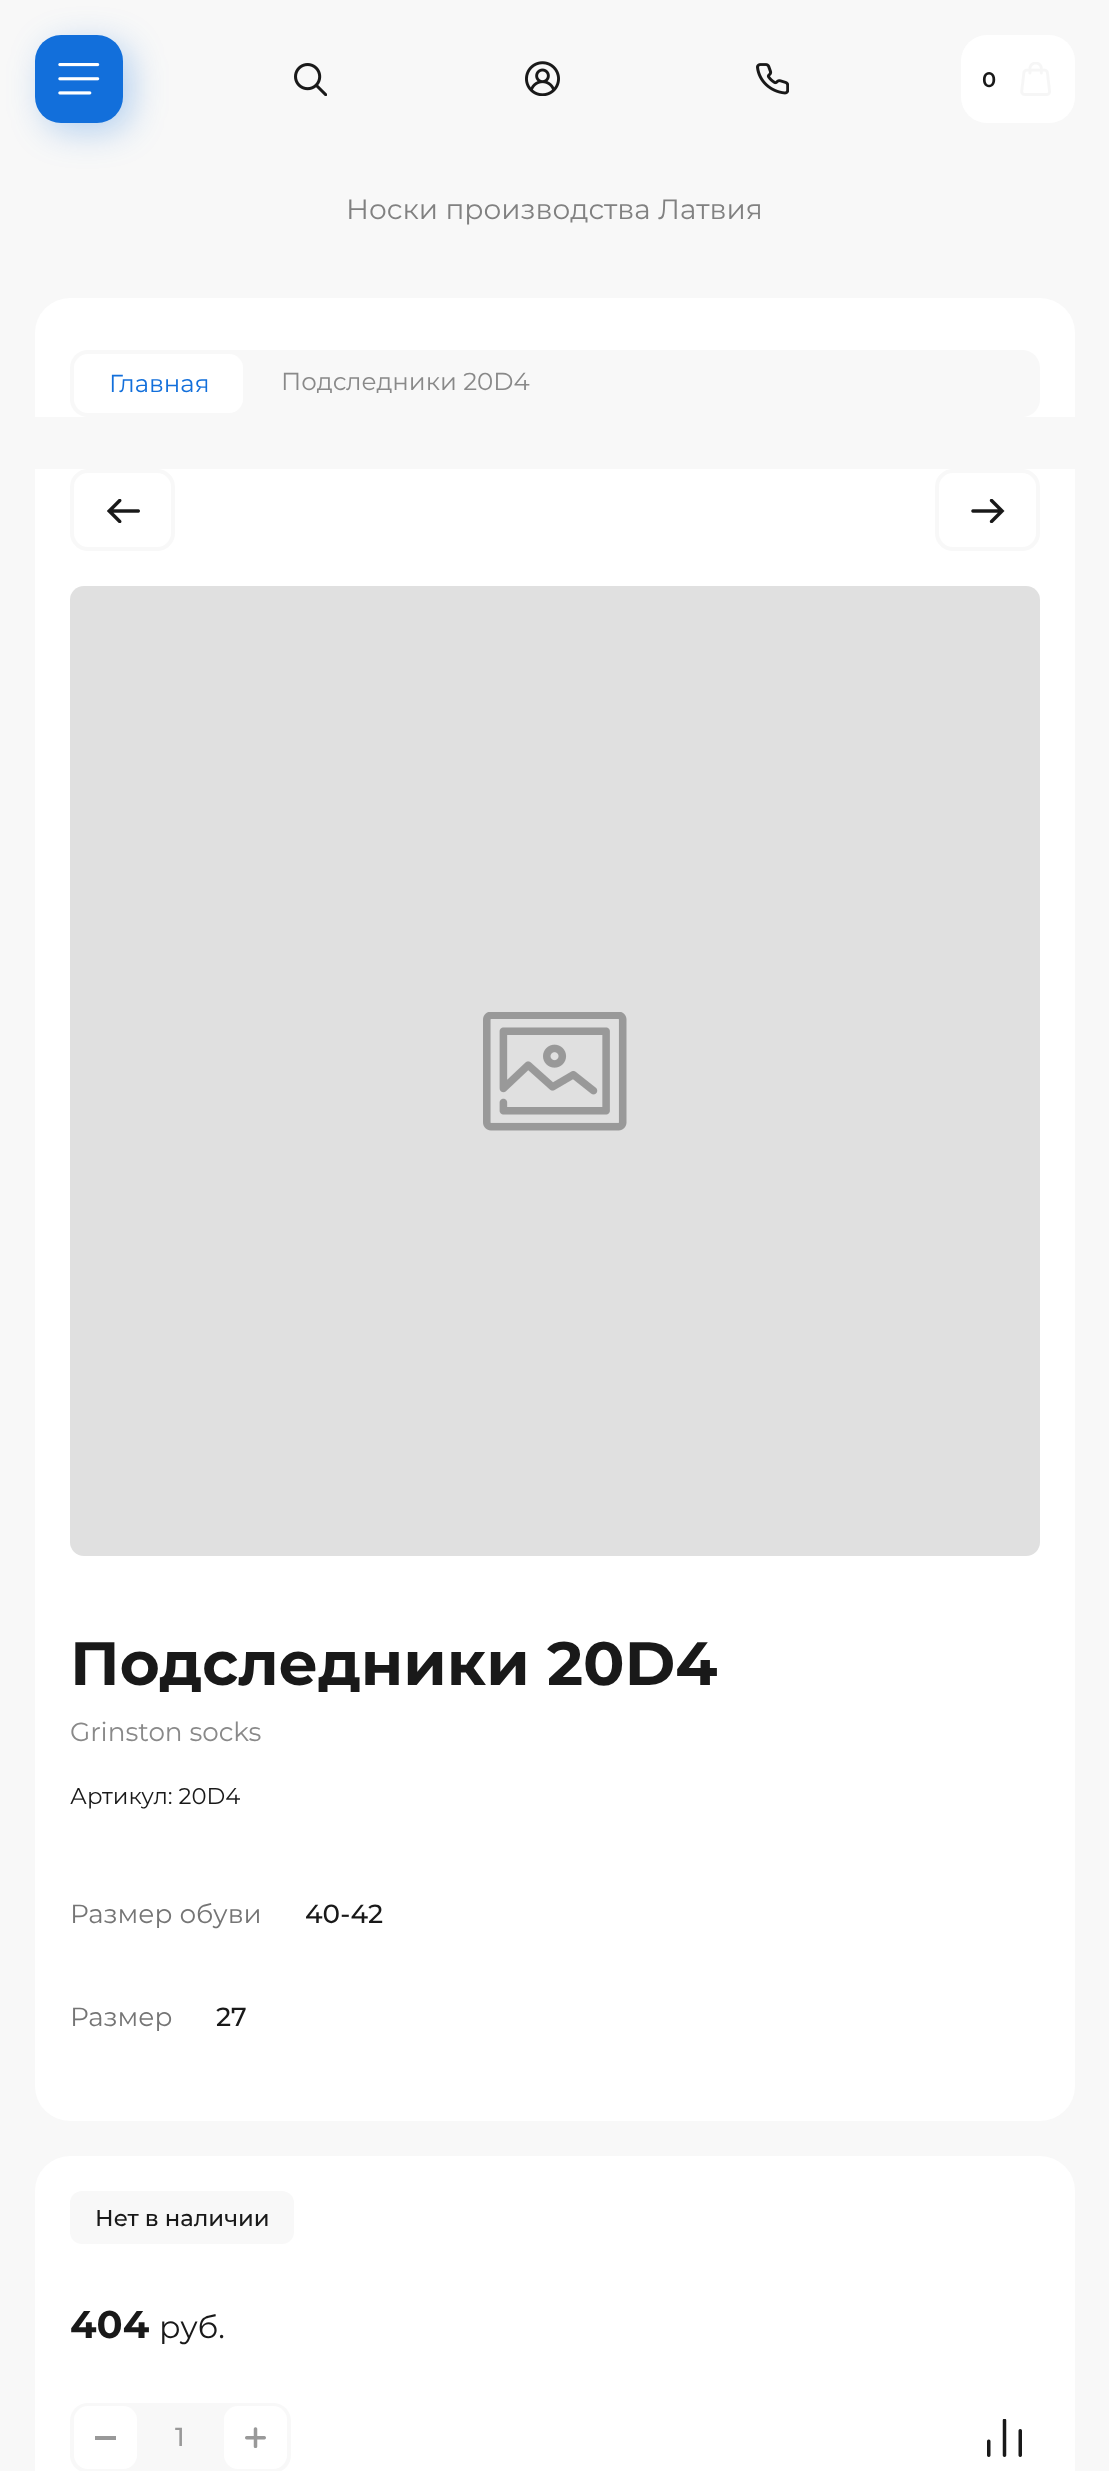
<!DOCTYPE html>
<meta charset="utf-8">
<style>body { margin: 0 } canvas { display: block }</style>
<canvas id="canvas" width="1109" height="2471"></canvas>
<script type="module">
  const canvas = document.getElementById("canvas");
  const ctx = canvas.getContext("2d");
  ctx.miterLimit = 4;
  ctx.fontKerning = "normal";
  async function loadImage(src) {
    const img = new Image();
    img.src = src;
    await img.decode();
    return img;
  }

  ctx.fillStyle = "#f8f8f8";
  ctx.fillRect(0, 0, 1109, 2471);
  ctx.fillStyle = "rgba(18, 111, 219, 0.3)";
  ctx.filter = "blur(17.5px)";
  ctx.beginPath();
  ctx.roundRect(44, 44, 87, 87, 26);
  ctx.fill();
  ctx.filter = "none";
  ctx.fillStyle = "#126fdb";
  ctx.beginPath();
  ctx.roundRect(35, 35, 88, 88, 26);
  ctx.fill();
  ctx.drawImage(await loadImage("img1.png"), 58, 63, 42, 32);
  ctx.drawImage(await loadImage("img2.png"), 294, 63, 33, 33);
  ctx.drawImage(await loadImage("img3.png"), 525, 61, 35, 35);
  ctx.drawImage(await loadImage("img4.png"), 756, 63, 33, 32);
  ctx.fillStyle = "#ffffff";
  ctx.beginPath();
  ctx.roundRect(961, 35, 114, 88, 26);
  ctx.fill();
  ctx.font = "600 21px Montserrat";
  ctx.fillStyle = "#191919";
  ctx.fillText("0", 982, 87);
  ctx.drawImage(await loadImage("img5.png"), 1020, 62, 31, 34);
  ctx.font = "28px Montserrat";
  ctx.fillStyle = "#818181";
  ctx.fillText("Носки производства Латвия", 346, 219);
  ctx.fillStyle = "#ffffff";
  ctx.beginPath();
  ctx.roundRect(35, 298, 1040, 119, [35, 35, 0, 0]);
  ctx.fill();
  ctx.fillStyle = "#f8f8f8";
  ctx.beginPath();
  ctx.roundRect(70, 350, 970, 67, 18);
  ctx.fill();
  ctx.fillStyle = "#ffffff";
  ctx.beginPath();
  ctx.roundRect(74, 354, 169, 59, 14);
  ctx.fill();
  ctx.font = "24.5px Montserrat";
  ctx.fillStyle = "#126fdb";
  ctx.fillText("Главная", 109, 392);
  ctx.fillStyle = "#898989";
  ctx.fillText("Подследники 20D4", 281, 390);
  ctx.fillStyle = "#ffffff";
  ctx.fillRect(35, 469, 1040, 82);
  ctx.beginPath();
  ctx.roundRect(72, 471, 101, 78, 16);
  ctx.strokeStyle = "#f8f8f8";
  ctx.lineWidth = 4;
  ctx.stroke();
  ctx.drawImage(await loadImage("img6.png"), 107, 499, 33, 24);
  ctx.beginPath();
  ctx.roundRect(937, 471, 101, 78, 16);
  ctx.stroke();
  ctx.drawImage(await loadImage("img7.png"), 971, 499, 34, 24);
  ctx.beginPath();
  ctx.roundRect(35, 551, 1040, 1570, [0, 0, 35, 35]);
  ctx.fill();
  ctx.fillStyle = "#e0e0e0";
  ctx.beginPath();
  ctx.roundRect(70, 586, 970, 970, 14);
  ctx.fill();
  ctx.drawImage(await loadImage("img8.png"), 483, 1012, 144, 119);
  ctx.font = "bold 61.25px Montserrat";
  ctx.fillStyle = "#191919";
  ctx.fillText("Подследники 20D4", 70, 1685);
  ctx.font = "26.25px Montserrat";
  ctx.fillStyle = "#898989";
  ctx.fillText("Grinston socks", 70, 1741);
  ctx.font = "22.75px Montserrat";
  ctx.fillStyle = "#191919";
  ctx.fillText("Артикул: 20D4", 70, 1804);
  ctx.font = "26.25px Montserrat";
  ctx.fillStyle = "#757575";
  ctx.fillText("Размер обуви", 70, 1923);
  ctx.font = "500 26.25px Montserrat";
  ctx.fillStyle = "#191919";
  ctx.fillText("40-42", 305, 1923);
  ctx.font = "26.25px Montserrat";
  ctx.fillStyle = "#757575";
  ctx.fillText("Размер", 70, 2026);
  ctx.font = "500 26.25px Montserrat";
  ctx.fillStyle = "#191919";
  ctx.fillText("27", 216, 2026);
  ctx.fillStyle = "#ffffff";
  ctx.beginPath();
  ctx.roundRect(35, 2156, 1040, 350, 35);
  ctx.fill();
  ctx.fillStyle = "#f8f8f8";
  ctx.beginPath();
  ctx.roundRect(70, 2191, 224, 53, 12);
  ctx.fill();
  ctx.font = "500 22.75px Montserrat";
  ctx.fillStyle = "#191919";
  ctx.fillText("Нет в наличии", 95, 2226);
  ctx.font = "bold 38.5px Montserrat";
  ctx.fillText("404", 70, 2338);
  ctx.font = "31.5px Montserrat";
  ctx.fillText("руб.", 159, 2338);
  ctx.fillStyle = "#f8f8f8";
  ctx.beginPath();
  ctx.roundRect(70, 2403, 221, 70, 18);
  ctx.fill();
  ctx.fillStyle = "#ffffff";
  ctx.beginPath();
  ctx.roundRect(74, 2406, 63, 63, 14);
  ctx.fill();
  ctx.fillStyle = "#999999";
  ctx.fillRect(95, 2436, 21, 4);
  ctx.font = "500 26.25px Montserrat";
  ctx.fillText("1", 175, 2446);
  ctx.fillStyle = "#ffffff";
  ctx.beginPath();
  ctx.roundRect(224, 2406, 63, 63, 14);
  ctx.fill();
  ctx.drawImage(await loadImage("img9.png"), 245, 2427, 21, 21);
  ctx.drawImage(await loadImage("img10.png"), 987, 2419, 35, 38);
</script>
